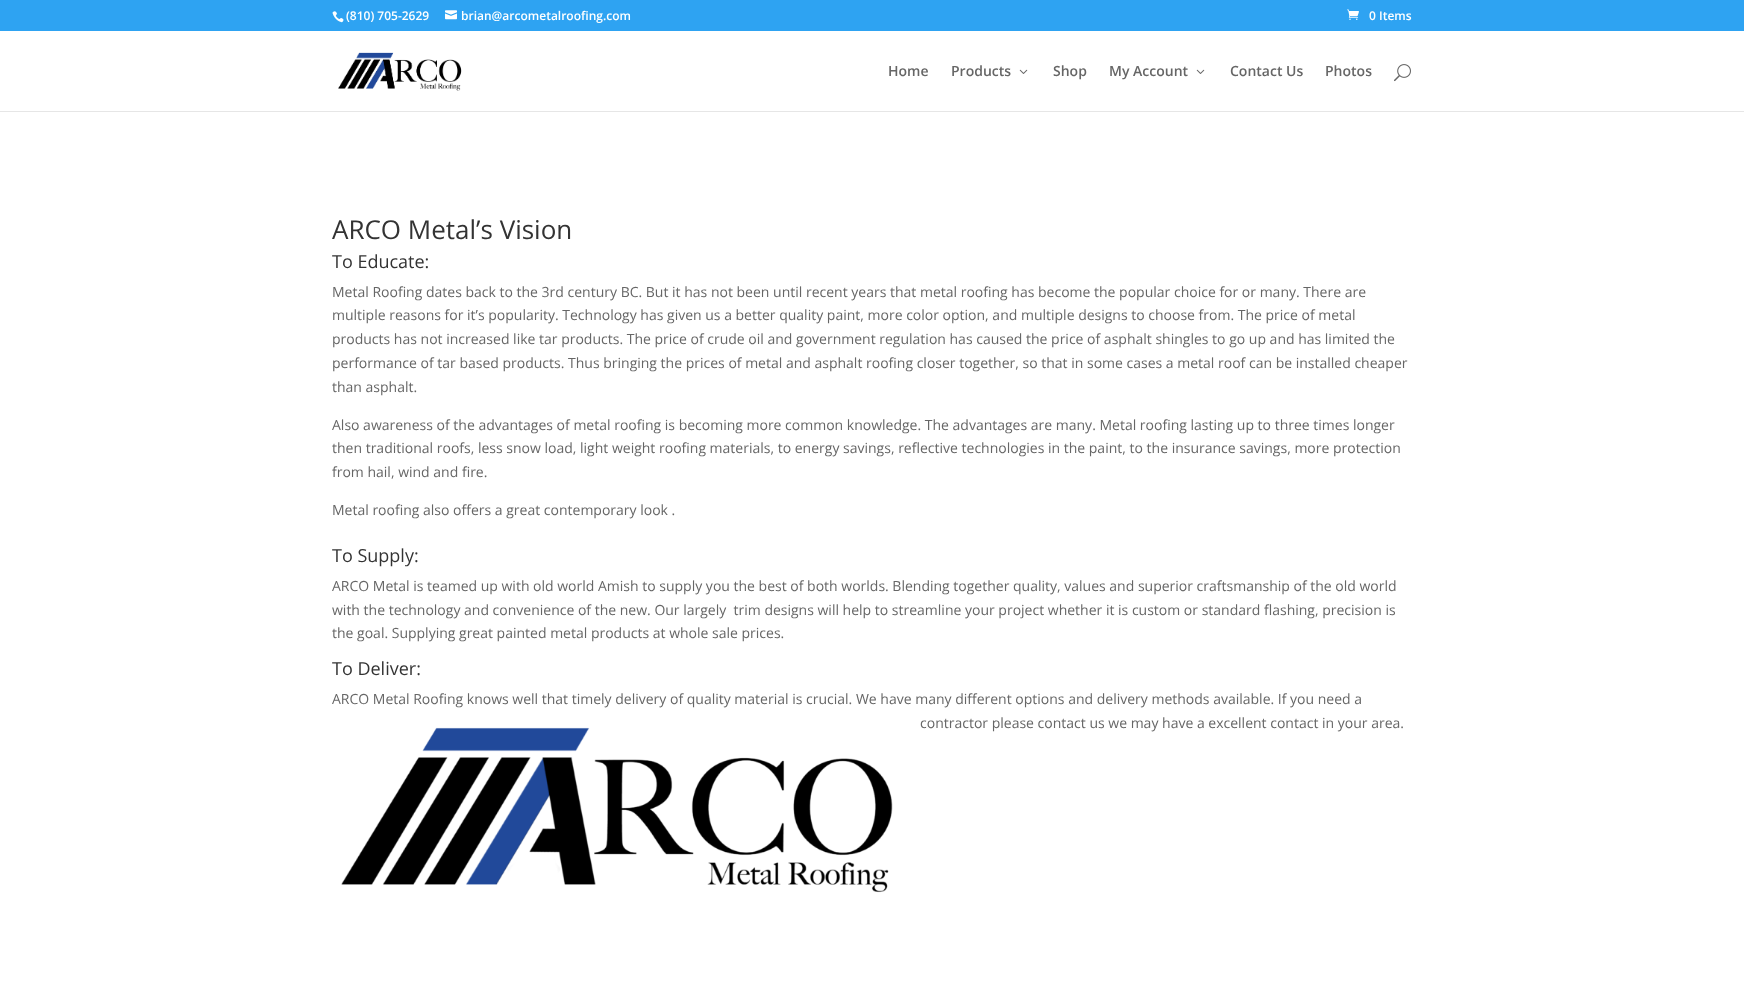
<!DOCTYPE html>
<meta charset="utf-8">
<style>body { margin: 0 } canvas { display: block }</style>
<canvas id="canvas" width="1744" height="992"></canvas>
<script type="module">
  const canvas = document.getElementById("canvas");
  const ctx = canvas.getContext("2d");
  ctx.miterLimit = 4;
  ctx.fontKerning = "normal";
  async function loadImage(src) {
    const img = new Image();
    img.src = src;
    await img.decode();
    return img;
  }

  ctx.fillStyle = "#ffffff";
  ctx.fillRect(0, 0, 1744, 992);
  ctx.fillStyle = "#2ea3f2";
  ctx.fillRect(0, 0, 1744, 31);
  ctx.drawImage(await loadImage("img1.png"), 332, 11, 12, 12);
  ctx.font = "600 12px Open Sans";
  ctx.fillStyle = "#ffffff";
  ctx.fillText("(810) 705-2629", 346, 20);
  ctx.drawImage(await loadImage("img2.png"), 445, 10, 12, 10);
  ctx.fillText("brian@arcometalroofing.com", 461, 20);
  ctx.drawImage(await loadImage("img3.png"), 1347, 9, 12, 11);
  ctx.fillText("0 Items", 1369, 20);
  ctx.fillStyle = "#e6e6e6";
  ctx.fillRect(0, 111, 1744, 1);
  ctx.drawImage(await loadImage("img4.png"), 338, 52, 124, 39);
  ctx.font = "600 14px Open Sans";
  ctx.fillStyle = "#666666";
  ctx.fillText("Home", 888, 76);
  ctx.fillText("Products", 951, 76);
  ctx.drawImage(await loadImage("img5.png"), 1019, 69, 9, 5);
  ctx.fillText("Shop", 1053, 76);
  ctx.fillText("My Account", 1109, 76);
  ctx.drawImage(await loadImage("img5.png"), 1196, 69, 9, 5);
  ctx.fillText("Contact Us", 1230, 76);
  ctx.fillText("Photos", 1325, 76);
  ctx.drawImage(await loadImage("img6.png"), 1394, 64, 17, 18);
  ctx.font = "26px Open Sans";
  ctx.fillStyle = "#333333";
  ctx.fillText("ARCO Metal’s Vision", 332, 239);
  ctx.font = "18px Open Sans";
  ctx.fillText("To Educate:", 332, 268);
  ctx.font = "14px Open Sans";
  ctx.fillStyle = "#666666";
  ctx.fillText("Metal Roofing dates back to the 3rd century BC. But it has not been until recent years that metal roofing has become the popular choice for or many. There are", 332, 297);
  ctx.fillText("multiple reasons for it’s popularity. Technology has given us a better quality paint, more color option, and multiple designs to choose from. The price of metal", 332, 320);
  ctx.fillText("products has not increased like tar products. The price of crude oil and government regulation has caused the price of asphalt shingles to go up and has limited the", 332, 344);
  ctx.fillText("performance of tar based products. Thus bringing the prices of metal and asphalt roofing closer together, so that in some cases a metal roof can be installed cheaper", 332, 368);
  ctx.fillText("than asphalt.", 332, 392);
  ctx.fillText("Also awareness of the advantages of metal roofing is becoming more common knowledge. The advantages are many. Metal roofing lasting up to three times longer", 332, 430);
  ctx.fillText("then traditional roofs, less snow load, light weight roofing materials, to energy savings, reflective technologies in the paint, to the insurance savings, more protection", 332, 453);
  ctx.fillText("from hail, wind and fire.", 332, 477);
  ctx.fillText("Metal roofing also offers a great contemporary look .", 332, 515);
  ctx.font = "18px Open Sans";
  ctx.fillStyle = "#333333";
  ctx.fillText("To Supply:", 332, 562);
  ctx.font = "14px Open Sans";
  ctx.fillStyle = "#666666";
  ctx.fillText("ARCO Metal is teamed up with old world Amish to supply you the best of both worlds. Blending together quality, values and superior craftsmanship of the old world", 332, 591);
  ctx.fillText("with the technology and convenience of the new. Our largely  trim designs will help to streamline your project whether it is custom or standard flashing, precision is", 332, 615);
  ctx.fillText("the goal. Supplying great painted metal products at whole sale prices.", 332, 638);
  ctx.font = "18px Open Sans";
  ctx.fillStyle = "#333333";
  ctx.fillText("To Deliver:", 332, 675);
  ctx.font = "14px Open Sans";
  ctx.fillStyle = "#666666";
  ctx.fillText("ARCO Metal Roofing knows well that timely delivery of quality material is crucial. We have many different options and delivery methods available. If you need a", 332, 704);
  ctx.fillText("contractor please contact us we may have a excellent contact in your area.", 920, 728);
  ctx.drawImage(await loadImage("img7.png"), 341, 727, 552, 166);
</script>
